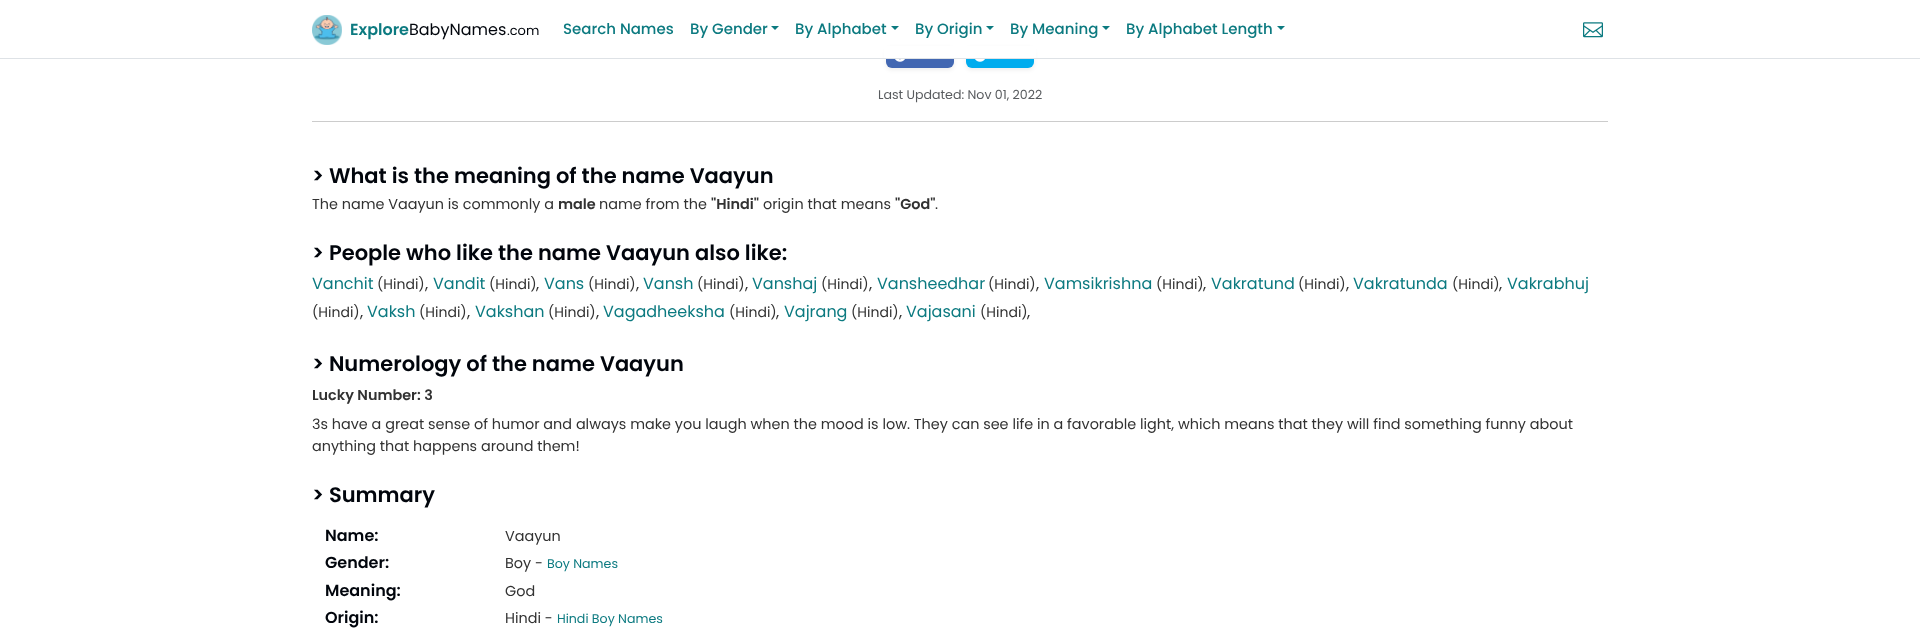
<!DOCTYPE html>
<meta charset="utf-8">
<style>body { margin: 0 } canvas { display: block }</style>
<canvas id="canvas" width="1920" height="633"></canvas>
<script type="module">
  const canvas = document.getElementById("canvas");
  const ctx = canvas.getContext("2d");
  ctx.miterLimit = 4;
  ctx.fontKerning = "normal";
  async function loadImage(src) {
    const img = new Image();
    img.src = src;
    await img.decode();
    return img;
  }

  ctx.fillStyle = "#ffffff";
  ctx.fillRect(0, 0, 1920, 633);
  ctx.fillStyle = "rgba(0, 0, 0, 0.07)";
  ctx.filter = "blur(2px)";
  ctx.beginPath();
  ctx.roundRect(886, 48, 68, 22, 6);
  ctx.fill();
  ctx.filter = "none";
  ctx.fillStyle = "#4267b2";
  ctx.beginPath();
  ctx.roundRect(886, 46, 68, 22, 6);
  ctx.fill();
  ctx.fillStyle = "rgba(0, 0, 0, 0.07)";
  ctx.filter = "blur(2px)";
  ctx.beginPath();
  ctx.roundRect(966, 48, 68, 22, 6);
  ctx.fill();
  ctx.filter = "none";
  ctx.fillStyle = "#00acee";
  ctx.beginPath();
  ctx.roundRect(966, 46, 68, 22, 6);
  ctx.fill();
  ctx.fillStyle = "#ffffff";
  ctx.fillRect(884, 46, 152, 12);
  ctx.fillStyle = "#dee2e6";
  ctx.fillRect(0, 58, 1920, 1);
  ctx.drawImage(await loadImage("img1.png"), 312, 15, 30, 30);
  ctx.font = "600 16px Poppins";
  ctx.fillStyle = "#0c7a80";
  ctx.fillText("Explore", 350, 35);
  ctx.font = "16px Poppins";
  ctx.fillStyle = "#01050c";
  ctx.fillText("BabyNames", 409, 35);
  ctx.font = "13px Poppins";
  ctx.fillText(".com", 507, 35);
  ctx.font = "500 15px Poppins";
  ctx.fillStyle = "#0c7a80";
  ctx.fillText("Search Names", 563, 34);
  ctx.fillText("By Gender", 690, 34);
  ctx.beginPath();
  ctx.moveTo(771, 26);
  ctx.lineTo(779, 26);
  ctx.lineTo(775, 30);
  ctx.closePath();
  ctx.fill();
  ctx.fillText("By Alphabet", 795, 34);
  ctx.beginPath();
  ctx.moveTo(891, 26);
  ctx.lineTo(899, 26);
  ctx.lineTo(895, 30);
  ctx.closePath();
  ctx.fill();
  ctx.fillText("By Origin", 915, 34);
  ctx.beginPath();
  ctx.moveTo(986, 26);
  ctx.lineTo(994, 26);
  ctx.lineTo(990, 30);
  ctx.closePath();
  ctx.fill();
  ctx.fillText("By Meaning", 1010, 34);
  ctx.beginPath();
  ctx.moveTo(1102, 26);
  ctx.lineTo(1110, 26);
  ctx.lineTo(1106, 30);
  ctx.closePath();
  ctx.fill();
  ctx.fillText("By Alphabet Length", 1126, 34);
  ctx.beginPath();
  ctx.moveTo(1277, 26);
  ctx.lineTo(1285, 26);
  ctx.lineTo(1281, 30);
  ctx.closePath();
  ctx.fill();
  ctx.drawImage(await loadImage("img2.png"), 1583, 22, 20, 16);
  ctx.drawImage(await loadImage("img3.png"), 895, 59, 10, 3);
  ctx.drawImage(await loadImage("img4.png"), 975, 59, 10, 3);
  ctx.font = "12.6px Poppins";
  ctx.fillStyle = "#595c5f";
  ctx.fillText("Last Updated: Nov 01, 2022", 878, 99);
  ctx.fillStyle = "#cccccc";
  ctx.fillRect(312, 121, 1296, 1);
  ctx.font = "600 21px Poppins";
  ctx.fillStyle = "#01050c";
  ctx.fillText("> What is the meaning of the name Vaayun", 312, 183);
  ctx.font = "14.4px Poppins";
  ctx.fillStyle = "#323232";
  ctx.fillText("The name Vaayun is commonly a", 312, 209);
  ctx.font = "600 14.4px Poppins";
  ctx.fillText("male", 558, 209);
  ctx.font = "14.4px Poppins";
  ctx.fillText("name from the", 599, 209);
  ctx.font = "600 14.4px Poppins";
  ctx.fillText("\"Hindi\"", 711, 209);
  ctx.font = "14.4px Poppins";
  ctx.fillText("origin that means", 763, 209);
  ctx.font = "600 14.4px Poppins";
  ctx.fillText("\"God\"", 895, 209);
  ctx.font = "14.4px Poppins";
  ctx.fillText(".", 935, 209);
  ctx.font = "600 21px Poppins";
  ctx.fillStyle = "#01050c";
  ctx.fillText("> People who like the name Vaayun also like:", 312, 260);
  ctx.font = "16px Poppins";
  ctx.fillStyle = "#0c7a80";
  ctx.fillText("Vanchit", 312, 289);
  ctx.font = "14px Poppins";
  ctx.fillStyle = "#323232";
  ctx.fillText("(Hindi)", 377, 289);
  ctx.font = "16px Poppins";
  ctx.fillText(",", 425, 289);
  ctx.fillStyle = "#0c7a80";
  ctx.fillText("Vandit", 433, 289);
  ctx.font = "14px Poppins";
  ctx.fillStyle = "#323232";
  ctx.fillText("(Hindi)", 489, 289);
  ctx.font = "16px Poppins";
  ctx.fillText(",", 536, 289);
  ctx.fillStyle = "#0c7a80";
  ctx.fillText("Vans", 544, 289);
  ctx.font = "14px Poppins";
  ctx.fillStyle = "#323232";
  ctx.fillText("(Hindi)", 588, 289);
  ctx.font = "16px Poppins";
  ctx.fillText(",", 636, 289);
  ctx.fillStyle = "#0c7a80";
  ctx.fillText("Vansh", 643, 289);
  ctx.font = "14px Poppins";
  ctx.fillStyle = "#323232";
  ctx.fillText("(Hindi)", 697, 289);
  ctx.font = "16px Poppins";
  ctx.fillText(",", 745, 289);
  ctx.fillStyle = "#0c7a80";
  ctx.fillText("Vanshaj", 752, 289);
  ctx.font = "14px Poppins";
  ctx.fillStyle = "#323232";
  ctx.fillText("(Hindi)", 821, 289);
  ctx.font = "16px Poppins";
  ctx.fillText(",", 869, 289);
  ctx.fillStyle = "#0c7a80";
  ctx.fillText("Vansheedhar", 877, 289);
  ctx.font = "14px Poppins";
  ctx.fillStyle = "#323232";
  ctx.fillText("(Hindi)", 988, 289);
  ctx.font = "16px Poppins";
  ctx.fillText(",", 1036, 289);
  ctx.fillStyle = "#0c7a80";
  ctx.fillText("Vamsikrishna", 1044, 289);
  ctx.font = "14px Poppins";
  ctx.fillStyle = "#323232";
  ctx.fillText("(Hindi)", 1156, 289);
  ctx.font = "16px Poppins";
  ctx.fillText(",", 1203, 289);
  ctx.fillStyle = "#0c7a80";
  ctx.fillText("Vakratund", 1211, 289);
  ctx.font = "14px Poppins";
  ctx.fillStyle = "#323232";
  ctx.fillText("(Hindi)", 1298, 289);
  ctx.font = "16px Poppins";
  ctx.fillText(",", 1346, 289);
  ctx.fillStyle = "#0c7a80";
  ctx.fillText("Vakratunda", 1353, 289);
  ctx.font = "14px Poppins";
  ctx.fillStyle = "#323232";
  ctx.fillText("(Hindi)", 1452, 289);
  ctx.font = "16px Poppins";
  ctx.fillText(",", 1499, 289);
  ctx.fillStyle = "#0c7a80";
  ctx.fillText("Vakrabhuj", 1507, 289);
  ctx.font = "14px Poppins";
  ctx.fillStyle = "#323232";
  ctx.fillText("(Hindi)", 312, 317);
  ctx.font = "16px Poppins";
  ctx.fillText(",", 360, 317);
  ctx.fillStyle = "#0c7a80";
  ctx.fillText("Vaksh", 367, 317);
  ctx.font = "14px Poppins";
  ctx.fillStyle = "#323232";
  ctx.fillText("(Hindi)", 419, 317);
  ctx.font = "16px Poppins";
  ctx.fillText(",", 467, 317);
  ctx.fillStyle = "#0c7a80";
  ctx.fillText("Vakshan", 475, 317);
  ctx.font = "14px Poppins";
  ctx.fillStyle = "#323232";
  ctx.fillText("(Hindi)", 548, 317);
  ctx.font = "16px Poppins";
  ctx.fillText(",", 596, 317);
  ctx.fillStyle = "#0c7a80";
  ctx.fillText("Vagadheeksha", 603, 317);
  ctx.font = "14px Poppins";
  ctx.fillStyle = "#323232";
  ctx.fillText("(Hindi)", 729, 317);
  ctx.font = "16px Poppins";
  ctx.fillText(",", 776, 317);
  ctx.fillStyle = "#0c7a80";
  ctx.fillText("Vajrang", 784, 317);
  ctx.font = "14px Poppins";
  ctx.fillStyle = "#323232";
  ctx.fillText("(Hindi)", 851, 317);
  ctx.font = "16px Poppins";
  ctx.fillText(",", 899, 317);
  ctx.fillStyle = "#0c7a80";
  ctx.fillText("Vajasani", 906, 317);
  ctx.font = "14px Poppins";
  ctx.fillStyle = "#323232";
  ctx.fillText("(Hindi)", 980, 317);
  ctx.font = "16px Poppins";
  ctx.fillText(",", 1027, 317);
  ctx.font = "600 21px Poppins";
  ctx.fillStyle = "#01050c";
  ctx.fillText("> Numerology of the name Vaayun", 312, 371);
  ctx.font = "600 14.4px Poppins";
  ctx.fillStyle = "#323232";
  ctx.fillText("Lucky Number: 3", 312, 400);
  ctx.font = "14.4px Poppins";
  ctx.fillText("3s have a great sense of humor and always make you laugh when the mood is low. They can see life in a favorable light, which means that they will find something funny about", 312, 429);
  ctx.fillText("anything that happens around them!", 312, 451);
  ctx.font = "600 21px Poppins";
  ctx.fillStyle = "#01050c";
  ctx.fillText("> Summary", 312, 502);
  ctx.font = "600 16px Poppins";
  ctx.fillText("Name:", 325, 541);
  ctx.font = "14.4px Poppins";
  ctx.fillStyle = "#323232";
  ctx.fillText("Vaayun", 505, 541);
  ctx.font = "600 16px Poppins";
  ctx.fillStyle = "#01050c";
  ctx.fillText("Gender:", 325, 568);
  ctx.font = "14.4px Poppins";
  ctx.fillStyle = "#323232";
  ctx.fillText("Boy -", 505, 568);
  ctx.font = "12.6px Poppins";
  ctx.fillStyle = "#0c7a80";
  ctx.fillText("Boy Names", 547, 568);
  ctx.font = "600 16px Poppins";
  ctx.fillStyle = "#01050c";
  ctx.fillText("Meaning:", 325, 596);
  ctx.font = "14.4px Poppins";
  ctx.fillStyle = "#323232";
  ctx.fillText("God", 505, 596);
  ctx.font = "600 16px Poppins";
  ctx.fillStyle = "#01050c";
  ctx.fillText("Origin:", 325, 623);
  ctx.font = "14.4px Poppins";
  ctx.fillStyle = "#323232";
  ctx.fillText("Hindi -", 505, 623);
  ctx.font = "12.6px Poppins";
  ctx.fillStyle = "#0c7a80";
  ctx.fillText("Hindi Boy Names", 557, 623);
</script>
